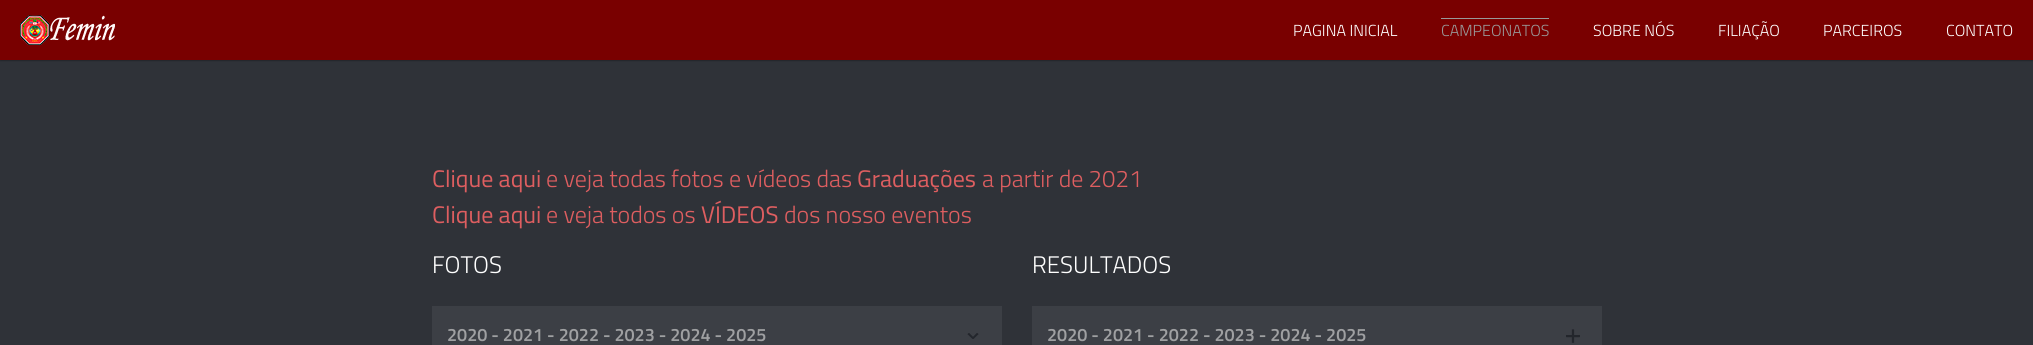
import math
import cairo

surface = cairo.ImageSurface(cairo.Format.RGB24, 2033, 345)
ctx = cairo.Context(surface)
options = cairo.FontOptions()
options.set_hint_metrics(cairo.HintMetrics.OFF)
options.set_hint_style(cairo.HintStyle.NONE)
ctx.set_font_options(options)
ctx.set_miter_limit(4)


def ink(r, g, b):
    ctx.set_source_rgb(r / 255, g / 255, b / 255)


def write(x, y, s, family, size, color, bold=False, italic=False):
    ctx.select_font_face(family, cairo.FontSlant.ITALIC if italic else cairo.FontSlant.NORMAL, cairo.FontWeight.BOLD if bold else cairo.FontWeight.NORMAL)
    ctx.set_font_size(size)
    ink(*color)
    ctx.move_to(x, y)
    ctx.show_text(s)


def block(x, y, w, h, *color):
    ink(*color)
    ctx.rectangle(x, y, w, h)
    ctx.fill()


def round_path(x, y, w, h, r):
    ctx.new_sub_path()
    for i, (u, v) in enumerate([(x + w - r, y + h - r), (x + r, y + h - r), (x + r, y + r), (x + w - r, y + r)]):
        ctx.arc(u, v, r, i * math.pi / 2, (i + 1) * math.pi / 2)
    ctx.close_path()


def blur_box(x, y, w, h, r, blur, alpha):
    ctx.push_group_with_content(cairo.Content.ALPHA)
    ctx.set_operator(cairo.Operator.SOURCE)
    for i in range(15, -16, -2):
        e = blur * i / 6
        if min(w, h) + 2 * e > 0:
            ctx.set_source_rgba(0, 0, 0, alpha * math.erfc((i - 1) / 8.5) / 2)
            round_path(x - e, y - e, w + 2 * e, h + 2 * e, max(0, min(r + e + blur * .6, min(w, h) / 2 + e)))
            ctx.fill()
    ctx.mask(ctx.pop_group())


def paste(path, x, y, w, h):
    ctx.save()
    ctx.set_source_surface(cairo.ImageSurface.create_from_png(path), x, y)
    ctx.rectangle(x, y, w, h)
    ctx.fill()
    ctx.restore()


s1 = dict(family="Titillium Web Light", size=16, color=(255, 255, 255))
s2 = dict(family="Titillium Web Light", size=16, color=(153, 153, 153))
s3 = dict(family="Titillium Web", size=24, color=(222, 94, 96))
s4 = dict(family="Titillium Web Light", size=24, color=(222, 94, 96))
s5 = dict(family="Titillium Web Light", size=24, color=(255, 255, 255))
s6 = dict(family="Titillium Web SemiBold", size=18, color=(159, 160, 162))

ink(47, 50, 56)
ctx.paint()
ink(0, 0, 0)
blur_box(0, 1, 2033, 60, 0, 0.5, 0.25)
block(0, 0, 2033, 60, 121, 0, 0)
paste("pic1.png", 20, 15, 95, 30)
write(1293, 36, "PAGINA INICIAL", **s1)
write(1441, 36, "CAMPEONATOS", **s2)
block(1441, 18, 108, 1, 153, 153, 153)
write(1593, 36, "SOBRE NÓS", **s1)
write(1718, 36, "FILIAÇÃO", **s1)
write(1823, 36, "PARCEIROS", **s1)
write(1946, 36, "CONTATO", **s1)
write(432, 187, "Clique aqui", **s3)
write(546, 187, "e veja todas fotos e vídeos das", **s4)
write(857, 187, "Graduações", **s3)
write(982, 187, "a partir de 2021", **s4)
write(432, 223, "Clique aqui", **s3)
write(546, 223, "e veja todos os", **s4)
write(701, 223, "VÍDEOS", **s3)
write(784, 223, "dos nosso eventos", **s4)
write(432, 273, "FOTOS", **s5)
block(432, 306, 570, 39, 60, 63, 69)
write(447, 341, "2020 - 2021 - 2022 - 2023 - 2024 - 2025", **s6)
paste("pic2.png", 967, 333, 12, 6)
write(1032, 273, "RESULTADOS", **s5)
block(1032, 306, 570, 39, 60, 63, 69)
write(1047, 341, "2020 - 2021 - 2022 - 2023 - 2024 - 2025", **s6)
paste("pic3.png", 1566, 329, 14, 14)
block(1566, 335, 14, 2, 35, 38, 44)
surface.write_to_png("screenshot.png")
